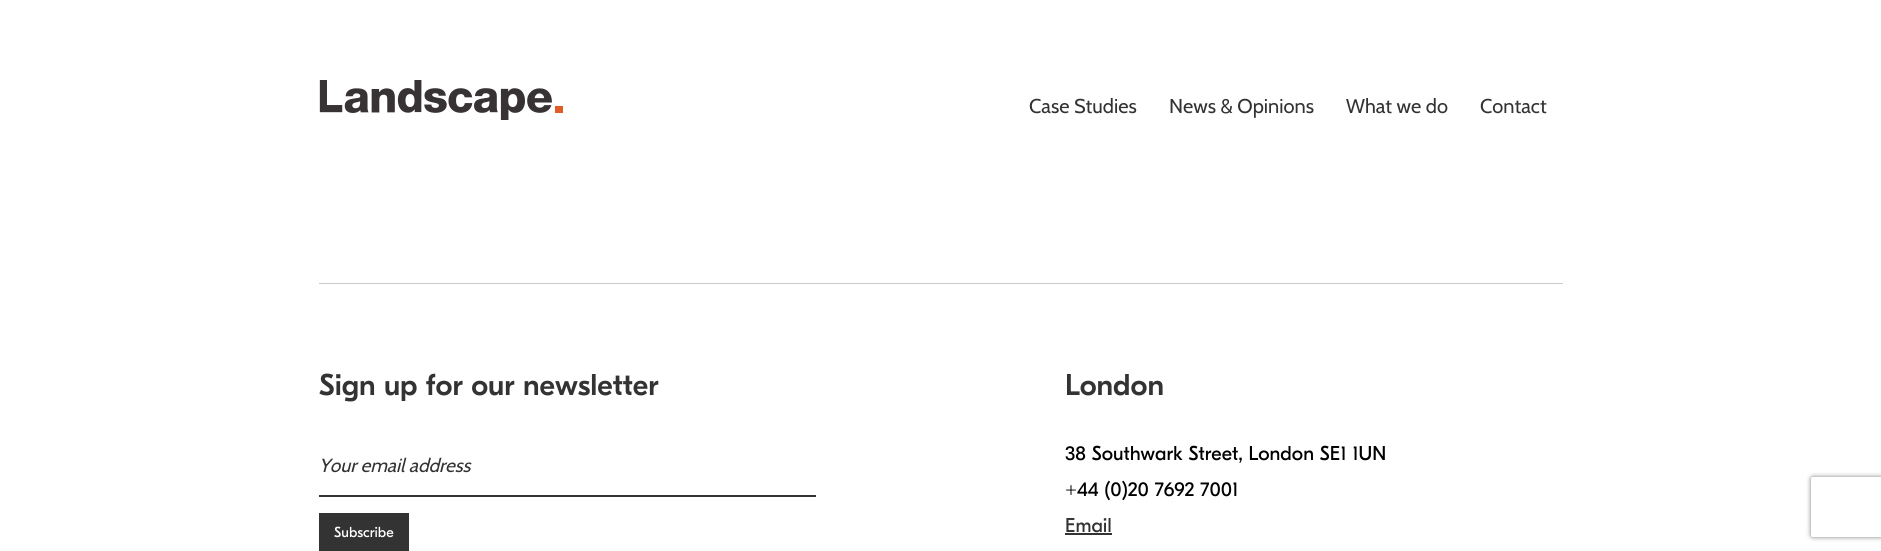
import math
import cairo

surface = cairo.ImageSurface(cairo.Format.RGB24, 1881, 551)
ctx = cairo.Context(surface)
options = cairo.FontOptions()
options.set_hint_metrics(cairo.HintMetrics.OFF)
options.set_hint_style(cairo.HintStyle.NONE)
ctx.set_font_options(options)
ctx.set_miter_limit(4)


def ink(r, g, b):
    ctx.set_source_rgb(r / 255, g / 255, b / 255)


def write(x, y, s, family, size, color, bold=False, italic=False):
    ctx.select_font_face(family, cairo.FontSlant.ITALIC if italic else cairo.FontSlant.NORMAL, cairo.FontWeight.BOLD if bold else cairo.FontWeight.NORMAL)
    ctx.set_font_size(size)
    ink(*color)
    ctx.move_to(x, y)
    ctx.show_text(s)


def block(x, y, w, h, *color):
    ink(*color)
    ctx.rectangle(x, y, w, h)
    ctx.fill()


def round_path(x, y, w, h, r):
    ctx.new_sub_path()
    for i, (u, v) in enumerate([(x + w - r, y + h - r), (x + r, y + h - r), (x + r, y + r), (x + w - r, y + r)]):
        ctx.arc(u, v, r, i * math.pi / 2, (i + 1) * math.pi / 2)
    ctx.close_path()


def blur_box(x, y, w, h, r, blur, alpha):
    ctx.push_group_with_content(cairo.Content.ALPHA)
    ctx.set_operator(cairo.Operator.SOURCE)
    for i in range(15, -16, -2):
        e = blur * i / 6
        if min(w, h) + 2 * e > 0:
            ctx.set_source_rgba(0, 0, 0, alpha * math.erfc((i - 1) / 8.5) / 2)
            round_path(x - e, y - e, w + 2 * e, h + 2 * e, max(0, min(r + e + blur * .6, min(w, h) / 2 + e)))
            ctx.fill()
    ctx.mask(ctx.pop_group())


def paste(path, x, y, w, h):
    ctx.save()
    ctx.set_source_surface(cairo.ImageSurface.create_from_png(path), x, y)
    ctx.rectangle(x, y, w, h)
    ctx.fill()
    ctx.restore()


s1 = dict(family="Cabin", size=20, color=(51, 51, 51))
s2 = dict(family="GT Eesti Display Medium", size=30, color=(51, 51, 51))
s3 = dict(family="Cabin", size=19, color=(51, 51, 51), italic=True)
s4 = dict(family="GT Eesti Display", size=14.5, color=(254, 254, 254))
s5 = dict(family="GT Eesti Display", size=20, color=(0, 0, 0))
s6 = dict(family="GT Eesti Display", size=20, color=(51, 51, 51))

ink(255, 255, 255)
ctx.paint()
paste("pic1.png", 319, 80, 244, 40)
write(1029, 113, "Case Studies", **s1)
write(1169, 113, "News & Opinions", **s1)
write(1346, 113, "What we do", **s1)
write(1480, 113, "Contact", **s1)
block(319, 283, 1244, 1, 202, 202, 202)
write(319, 395, "Sign up for our newsletter", **s2)
block(319, 495, 497, 2, 51, 51, 51)
write(319, 472, "Your email address", **s3)
block(319, 513, 90, 38, 51, 51, 51)
write(334, 537, "Subscribe", **s4)
write(1065, 395, "London", **s2)
write(1065, 460, "38 Southwark Street, London SE1 1UN", **s5)
write(1065, 496, "+44 (0)20 7692 7001", **s5)
write(1065, 532, "Email", **s6)
block(1065, 533, 47, 2, 51, 51, 51)
ctx.save()
ctx.set_fill_rule(cairo.FillRule.EVEN_ODD)
ctx.new_path()
ctx.move_to(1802, 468)
ctx.line_to(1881, 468)
ctx.line_to(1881, 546)
ctx.line_to(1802, 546)
ctx.close_path()
ctx.move_to(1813, 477)
ctx.line_to(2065, 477)
ctx.curve_to(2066, 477, 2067, 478, 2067, 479)
ctx.line_to(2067, 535)
ctx.curve_to(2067, 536, 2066, 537, 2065, 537)
ctx.line_to(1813, 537)
ctx.curve_to(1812, 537, 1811, 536, 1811, 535)
ctx.line_to(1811, 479)
ctx.curve_to(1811, 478, 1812, 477, 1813, 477)
ctx.close_path()
ctx.clip()
ink(128, 128, 128)
blur_box(1811, 477, 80, 60, 2, 2.5, 1)
ctx.restore()
surface.write_to_png("screenshot.png")
